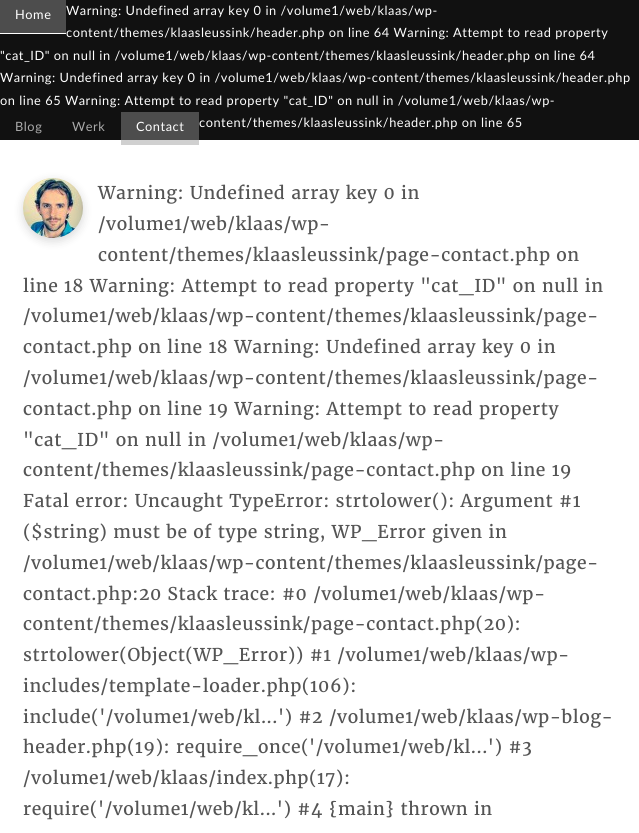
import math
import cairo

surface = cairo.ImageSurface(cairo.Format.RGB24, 639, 833)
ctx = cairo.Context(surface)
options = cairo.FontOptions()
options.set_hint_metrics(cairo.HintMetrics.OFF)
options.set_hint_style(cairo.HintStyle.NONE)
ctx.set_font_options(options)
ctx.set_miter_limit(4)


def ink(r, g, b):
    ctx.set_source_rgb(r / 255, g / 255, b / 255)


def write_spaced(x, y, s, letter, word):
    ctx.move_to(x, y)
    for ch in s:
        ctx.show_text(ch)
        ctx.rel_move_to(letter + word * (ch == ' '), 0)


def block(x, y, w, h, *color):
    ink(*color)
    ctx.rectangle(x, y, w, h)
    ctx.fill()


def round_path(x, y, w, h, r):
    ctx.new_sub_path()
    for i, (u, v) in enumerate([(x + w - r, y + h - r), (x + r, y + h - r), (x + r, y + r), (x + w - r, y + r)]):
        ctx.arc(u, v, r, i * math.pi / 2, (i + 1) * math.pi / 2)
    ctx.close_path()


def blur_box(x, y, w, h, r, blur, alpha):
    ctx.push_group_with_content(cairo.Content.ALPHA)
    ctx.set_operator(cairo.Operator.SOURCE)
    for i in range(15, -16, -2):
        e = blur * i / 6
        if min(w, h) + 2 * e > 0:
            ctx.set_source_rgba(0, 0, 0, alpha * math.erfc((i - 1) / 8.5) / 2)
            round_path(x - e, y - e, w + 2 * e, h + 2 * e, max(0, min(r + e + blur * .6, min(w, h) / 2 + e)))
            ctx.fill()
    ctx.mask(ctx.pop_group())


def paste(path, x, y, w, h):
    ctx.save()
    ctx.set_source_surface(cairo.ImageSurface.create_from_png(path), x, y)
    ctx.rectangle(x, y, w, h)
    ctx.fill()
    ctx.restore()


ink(255, 255, 255)
ctx.paint()
block(0, 0, 639, 140, 17, 17, 17)
block(0, 0, 66, 33, 77, 77, 77)
block(0, 33, 66, 1, 255, 255, 255)
ctx.select_font_face("Lato")
ctx.set_font_size(12.8)
write_spaced(15, 19, "Home", 0.53, 0)
write_spaced(66, 15, "Warning: Undefined array key 0 in /volume1/web/klaas/wp-", 0.53, 0)
write_spaced(66, 37, "content/themes/klaasleussink/header.php on line 64 Warning: Attempt to read property", 0.53, 0)
write_spaced(0, 60, "\"cat_ID\" on null in /volume1/web/klaas/wp-content/themes/klaasleussink/header.php on line 64", 0.53, 0)
write_spaced(0, 82, "Warning: Undefined array key 0 in /volume1/web/klaas/wp-content/themes/klaasleussink/header.php", 0.53, 0)
write_spaced(0, 105, "on line 65 Warning: Attempt to read property \"cat_ID\" on null in /volume1/web/klaas/wp-", 0.53, 0)
ink(170, 170, 170)
write_spaced(15, 131, "Blog", 0.53, 0)
write_spaced(72, 131, "Werk", 0.53, 0)
ctx.set_source_rgba(0.592, 0.592, 0.592, 0.45)
ctx.rectangle(121, 112, 78, 33)
ctx.fill()
ink(255, 255, 255)
write_spaced(136, 131, "Contact", 0.53, 0)
write_spaced(199, 127, "content/themes/klaasleussink/header.php on line 65", 0.53, 0)
ink(0, 0, 0)
blur_box(23, 181, 60, 60, 30, 5, 0.15)
paste("pic1.png", 23, 178, 60, 60)
ctx.select_font_face("Merriweather")
ctx.set_font_size(17.6)
ink(85, 85, 85)
write_spaced(98, 199, "Warning: Undefined array key 0 in", 0.53, 0)
write_spaced(98, 230, "/volume1/web/klaas/wp-", 0.53, 0)
write_spaced(98, 261, "content/themes/klaasleussink/page-contact.php on", 0.53, 0)
write_spaced(23, 292, "line 18 Warning: Attempt to read property \"cat_ID\" on null in", 0.53, 0)
write_spaced(23, 322, "/volume1/web/klaas/wp-content/themes/klaasleussink/page-", 0.53, 0)
write_spaced(23, 353, "contact.php on line 18 Warning: Undefined array key 0 in", 0.53, 0)
write_spaced(23, 384, "/volume1/web/klaas/wp-content/themes/klaasleussink/page-", 0.53, 0)
write_spaced(23, 415, "contact.php on line 19 Warning: Attempt to read property", 0.53, 0)
write_spaced(23, 446, "\"cat_ID\" on null in /volume1/web/klaas/wp-", 0.53, 0)
write_spaced(23, 476, "content/themes/klaasleussink/page-contact.php on line 19", 0.53, 0)
write_spaced(23, 507, "Fatal error: Uncaught TypeError: strtolower(): Argument #1", 0.53, 0)
write_spaced(23, 538, "($string) must be of type string, WP_Error given in", 0.53, 0)
write_spaced(23, 569, "/volume1/web/klaas/wp-content/themes/klaasleussink/page-", 0.53, 0)
write_spaced(23, 600, "contact.php:20 Stack trace: #0 /volume1/web/klaas/wp-", 0.53, 0)
write_spaced(23, 630, "content/themes/klaasleussink/page-contact.php(20):", 0.53, 0)
write_spaced(23, 661, "strtolower(Object(WP_Error)) #1 /volume1/web/klaas/wp-", 0.53, 0)
write_spaced(23, 692, "includes/template-loader.php(106):", 0.53, 0)
write_spaced(23, 723, "include('/volume1/web/kl...') #2 /volume1/web/klaas/wp-blog-", 0.53, 0)
write_spaced(23, 753, "header.php(19): require_once('/volume1/web/kl...') #3", 0.53, 0)
write_spaced(23, 784, "/volume1/web/klaas/index.php(17):", 0.53, 0)
write_spaced(23, 815, "require('/volume1/web/kl...') #4 {main} thrown in", 0.53, 0)
surface.write_to_png("screenshot.png")
